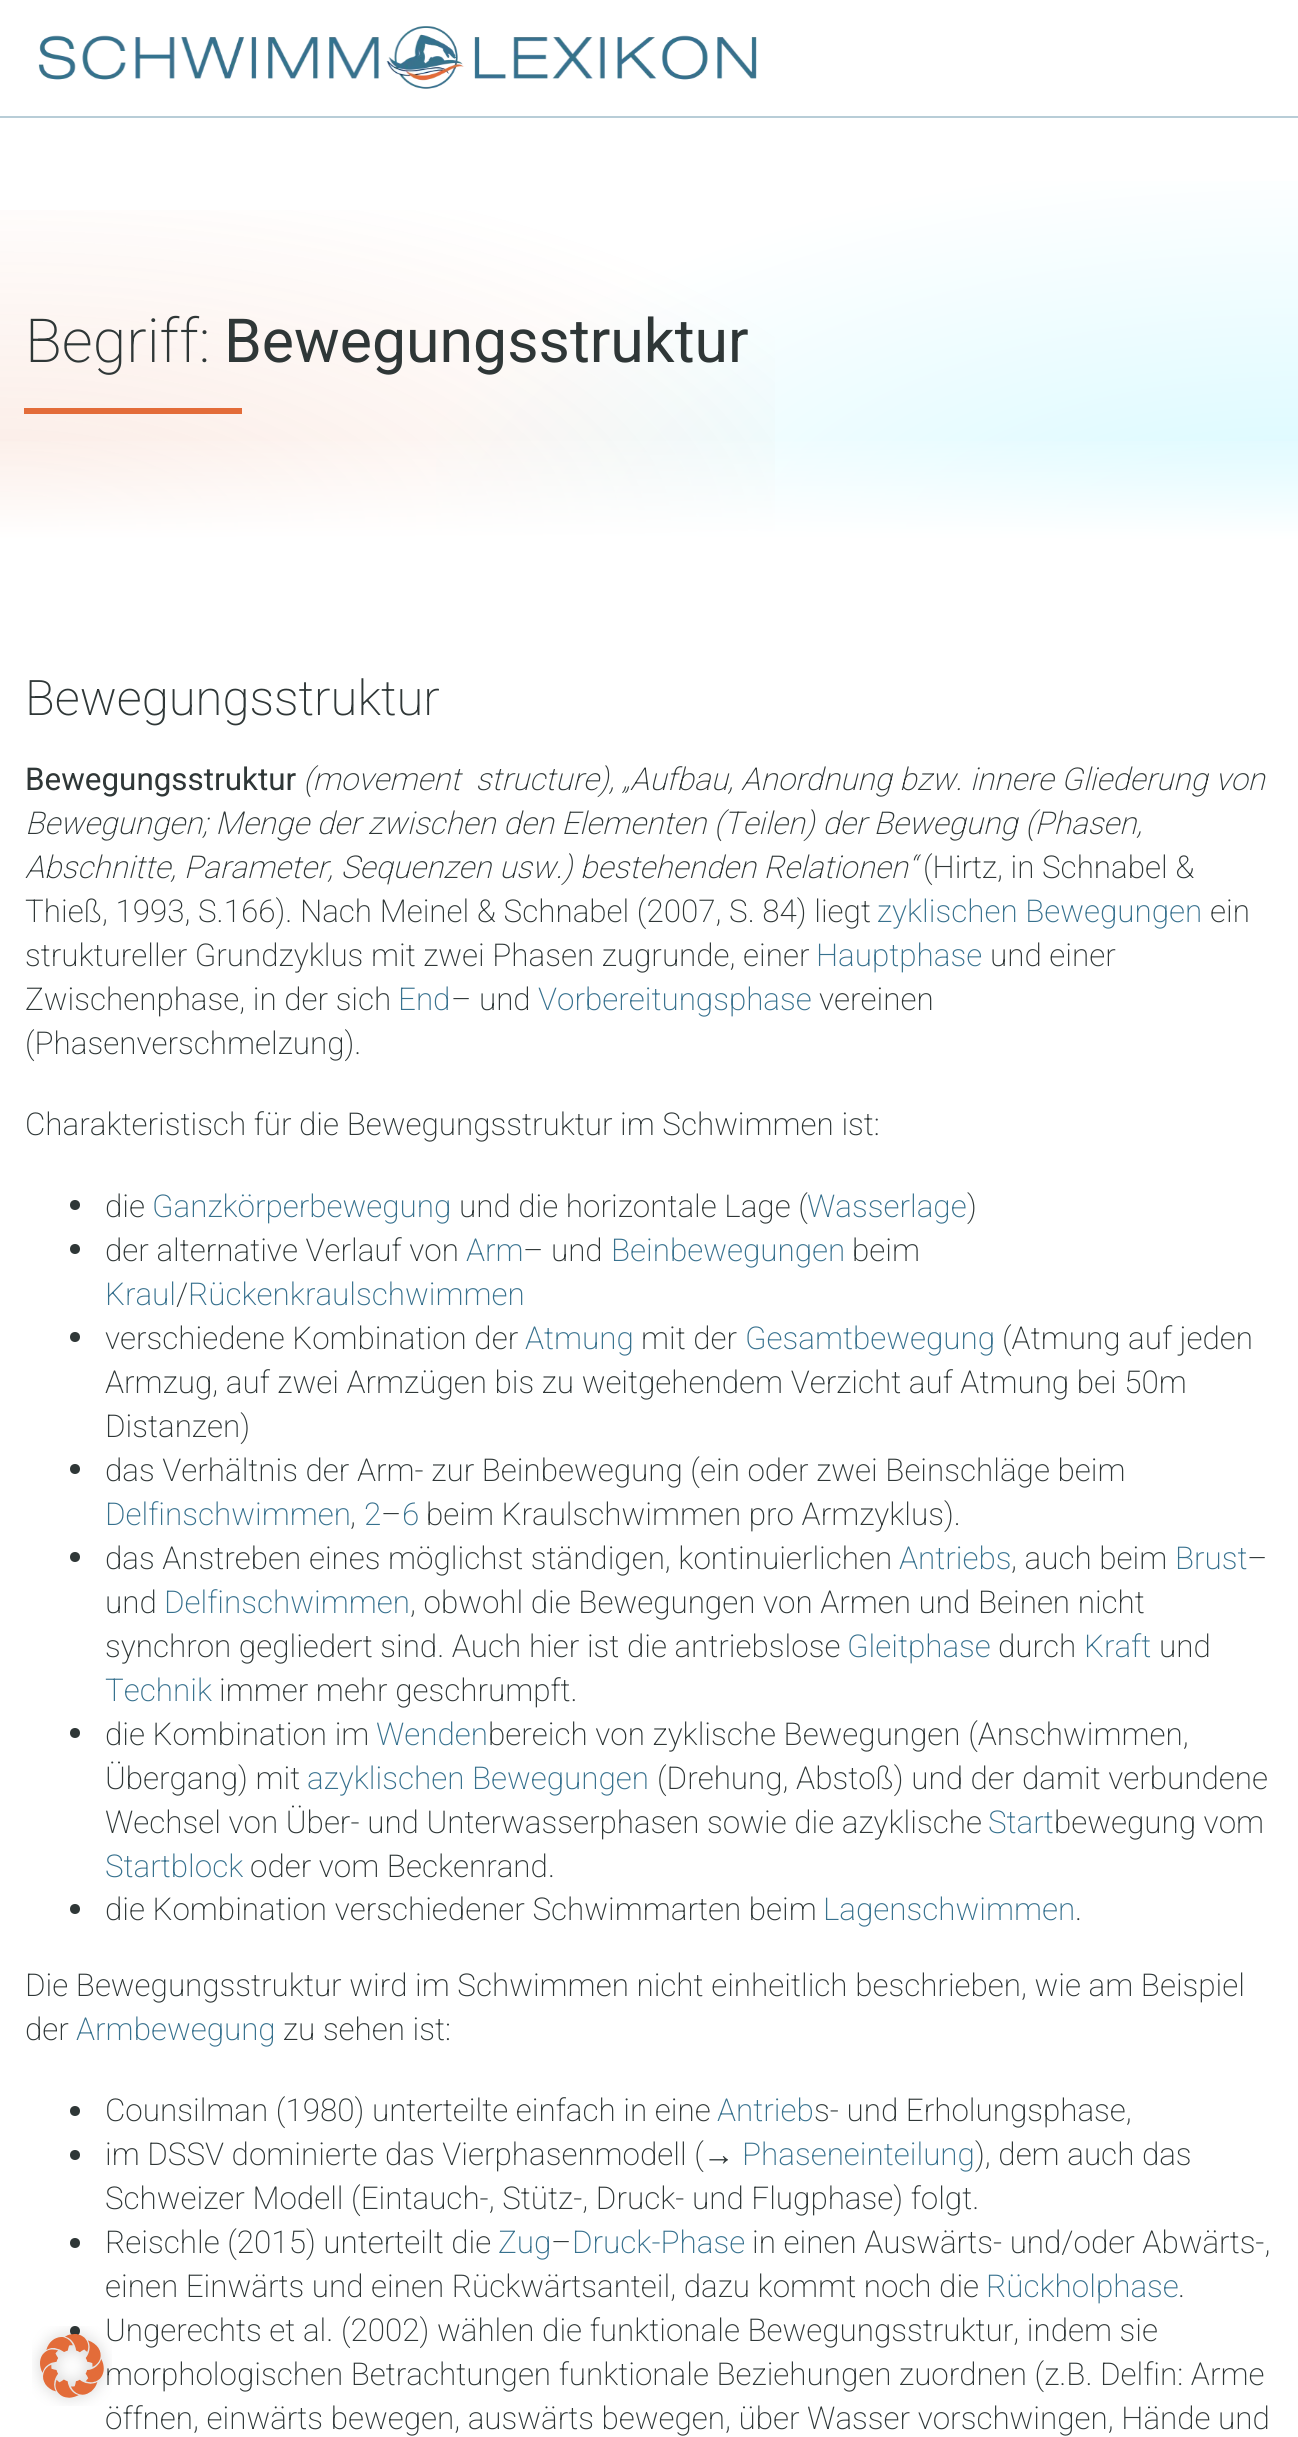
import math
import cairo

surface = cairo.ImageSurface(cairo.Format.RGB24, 1298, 2437)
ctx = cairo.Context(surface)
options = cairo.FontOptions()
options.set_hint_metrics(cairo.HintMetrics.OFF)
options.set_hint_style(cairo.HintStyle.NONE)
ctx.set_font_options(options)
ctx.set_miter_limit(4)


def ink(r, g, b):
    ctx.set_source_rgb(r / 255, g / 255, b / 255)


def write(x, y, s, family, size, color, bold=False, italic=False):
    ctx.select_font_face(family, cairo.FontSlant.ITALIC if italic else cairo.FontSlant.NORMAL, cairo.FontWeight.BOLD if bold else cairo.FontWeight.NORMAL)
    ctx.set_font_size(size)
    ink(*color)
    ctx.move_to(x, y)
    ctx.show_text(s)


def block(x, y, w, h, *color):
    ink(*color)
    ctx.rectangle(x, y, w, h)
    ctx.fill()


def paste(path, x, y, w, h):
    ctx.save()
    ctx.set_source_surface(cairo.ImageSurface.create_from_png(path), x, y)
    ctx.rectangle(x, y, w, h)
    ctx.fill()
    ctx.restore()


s1 = dict(family="Roboto ExtraLight", size=60.75, color=(47, 55, 55))
s2 = dict(family="Roboto", size=60.75, color=(47, 55, 55))
s3 = dict(family="Roboto ExtraLight", size=49, color=(47, 55, 55))
s4 = dict(family="Roboto", size=31.4, color=(47, 55, 55))
s5 = dict(family="Roboto ExtraLight", size=31.4, color=(47, 55, 55), italic=True)
s6 = dict(family="Roboto ExtraLight", size=31.4, color=(47, 55, 55))
s7 = dict(family="Roboto ExtraLight", size=31.4, color=(55, 113, 142))
s8 = dict(family="Liberation Serif", size=31.4, color=(47, 55, 55))

ink(255, 255, 255)
ctx.paint()
block(0, 116, 1298, 2, 184, 205, 215)
paste("pic1.png", 38, 26, 719, 63)
gradient = cairo.RadialGradient(0, 0, 0, 0, 0, 1)
gradient.set_matrix(cairo.Matrix(1 / 1836, 0, 0, 1 / 764, -1 * 1298 / 1836, -1 * 540 / 764))
gradient.add_color_stop_rgba(0, 0.835, 0.976, 1, 1)
gradient.add_color_stop_rgba(0.5, 1, 1, 1, 1)
ctx.set_source(gradient)
ctx.rectangle(436, 181, 862, 358)
ctx.fill()
gradient = cairo.RadialGradient(0, 0, 0, 0, 0, 1)
gradient.set_matrix(cairo.Matrix(1 / 1836, 0, 0, 1 / 741, -1 * 0 / 1836, -1 * 524 / 741))
gradient.add_color_stop_rgba(0, 0.882, 0.416, 0.216, 0.14)
gradient.add_color_stop_rgba(0.5, 0.882, 0.416, 0.216, 0)
ctx.set_source(gradient)
ctx.rectangle(0, 210, 775, 329)
ctx.fill()
write(25, 362, "Begriff:", **s1)
write(224, 362, "Bewegungsstruktur", **s2)
block(24, 408, 218, 6, 227, 108, 57)
gradient = cairo.LinearGradient(649, 0, 649, 540)
gradient.add_color_stop_rgba(0.8, 1, 1, 1, 0)
gradient.add_color_stop_rgba(1, 1, 1, 1, 1)
ctx.set_source(gradient)
ctx.rectangle(0, 441, 1298, 98)
ctx.fill()
write(25, 715, "Bewegungsstruktur", **s3)
write(25, 790, "Bewegungsstruktur", **s4)
write(303, 790, "(movement  structure), „Aufbau, Anordnung bzw. innere Gliederung von", **s5)
write(25, 834, "Bewegungen; Menge der zwischen den Elementen (Teilen) der Bewegung (Phasen,", **s5)
write(25, 878, "Abschnitte, Parameter, Sequenzen usw.) bestehenden Relationen“", **s5)
write(923, 878, "(Hirtz, in Schnabel &", **s6)
write(25, 922, "Thieß, 1993, S.166). Nach Meinel & Schnabel (2007, S. 84) liegt", **s6)
write(877, 922, "zyklischen Bewegungen", **s7)
write(1210, 922, "ein", **s6)
write(25, 966, "struktureller Grundzyklus mit zwei Phasen zugrunde, einer", **s6)
write(816, 966, "Hauptphase", **s7)
write(990, 966, "und einer", **s6)
write(25, 1010, "Zwischenphase, in der sich", **s6)
write(398, 1010, "End", **s7)
write(451, 1010, "– und", **s6)
write(538, 1010, "Vorbereitungsphase", **s7)
write(819, 1010, "vereinen", **s6)
write(25, 1054, "(Phasenverschmelzung).", **s6)
write(25, 1135, "Charakteristisch für die Bewegungsstruktur im Schwimmen ist:", **s6)
ctx.new_path()
ctx.arc(75, 1205, 5, 0, 2 * math.pi)
ctx.fill()
write(105, 1217, "die", **s6)
write(152, 1217, "Ganzkörperbewegung", **s7)
write(459, 1217, "und die horizontale Lage (", **s6)
write(807, 1217, "Wasserlage", **s7)
write(967, 1217, ")", **s6)
ctx.new_path()
ctx.arc(75, 1249, 5, 0, 2 * math.pi)
ctx.fill()
write(105, 1261, "der alternative Verlauf von", **s6)
write(466, 1261, "Arm", **s7)
write(523, 1261, "– und", **s6)
write(611, 1261, "Beinbewegungen", **s7)
write(852, 1261, "beim", **s6)
write(105, 1305, "Kraul", **s7)
write(176, 1305, "/", **s6)
write(188, 1305, "Rückenkraulschwimmen", **s7)
ink(47, 55, 55)
ctx.new_path()
ctx.arc(75, 1337, 5, 0, 2 * math.pi)
ctx.fill()
write(105, 1349, "verschiedene Kombination der", **s6)
write(525, 1349, "Atmung", **s7)
write(641, 1349, "mit der", **s6)
write(745, 1349, "Gesamtbewegung", **s7)
write(1002, 1349, "(Atmung auf jeden", **s6)
write(105, 1393, "Armzug, auf zwei Armzügen bis zu weitgehendem Verzicht auf Atmung bei 50m", **s6)
write(105, 1437, "Distanzen)", **s6)
ctx.new_path()
ctx.arc(75, 1469, 5, 0, 2 * math.pi)
ctx.fill()
write(105, 1481, "das Verhältnis der Arm- zur Beinbewegung (ein oder zwei Beinschläge beim", **s6)
write(105, 1525, "Delfinschwimmen", **s7)
write(364, 1525, "2", **s7)
write(381, 1525, "–", **s6)
write(402, 1525, "6", **s7)
write(426, 1525, "beim Kraulschwimmen pro Armzyklus).", **s6)
write(350, 1525, ",", **s6)
ctx.new_path()
ctx.arc(75, 1557, 5, 0, 2 * math.pi)
ctx.fill()
write(105, 1569, "das Anstreben eines möglichst ständigen, kontinuierlichen", **s6)
write(899, 1569, "Antriebs", **s7)
write(1011, 1569, ", auch beim", **s6)
write(1175, 1569, "Brust", **s7)
write(1247, 1569, "–", **s6)
write(105, 1613, "und", **s6)
write(164, 1613, "Delfinschwimmen", **s7)
write(410, 1613, ", obwohl die Bewegungen von Armen und Beinen nicht", **s6)
write(105, 1657, "synchron gegliedert sind. Auch hier ist die antriebslose", **s6)
write(847, 1657, "Gleitphase", **s7)
write(998, 1657, "durch", **s6)
write(1084, 1657, "Kraft", **s7)
write(1159, 1657, "und", **s6)
write(105, 1701, "Technik", **s7)
write(219, 1701, "immer mehr geschrumpft.", **s6)
ctx.new_path()
ctx.arc(75, 1733, 5, 0, 2 * math.pi)
ctx.fill()
write(105, 1745, "die Kombination im", **s6)
write(376, 1745, "Wenden", **s7)
write(488, 1745, "bereich von zyklische Bewegungen (Anschwimmen,", **s6)
write(105, 1789, "Übergang) mit", **s6)
write(307, 1789, "azyklischen Bewegungen", **s7)
write(657, 1789, "(Drehung, Abstoß) und der damit verbundene", **s6)
write(105, 1833, "Wechsel von Über- und Unterwasserphasen sowie die azyklische", **s6)
write(988, 1833, "Start", **s7)
write(1054, 1833, "bewegung vom", **s6)
write(105, 1877, "Startblock", **s7)
write(250, 1877, "oder vom Beckenrand.", **s6)
ctx.new_path()
ctx.arc(75, 1909, 5, 0, 2 * math.pi)
ctx.fill()
write(105, 1920, "die Kombination verschiedener Schwimmarten beim", **s6)
write(823, 1920, "Lagenschwimmen", **s7)
write(1075, 1920, ".", **s6)
write(25, 1996, "Die Bewegungsstruktur wird im Schwimmen nicht einheitlich beschrieben, wie am Beispiel", **s6)
write(25, 2040, "der", **s6)
write(76, 2040, "Armbewegung", **s7)
write(283, 2040, "zu sehen ist:", **s6)
ctx.new_path()
ctx.arc(75, 2111, 5, 0, 2 * math.pi)
ctx.fill()
write(105, 2121, "Counsilman (1980) unterteilte einfach in eine", **s6)
write(717, 2121, "Antrieb", **s7)
write(814, 2121, "s- und Erholungsphase,", **s6)
ctx.new_path()
ctx.arc(75, 2155, 5, 0, 2 * math.pi)
ctx.fill()
write(105, 2165, "im DSSV dominierte das Vierphasenmodell (", **s6)
write(703, 2165, "→", **s8)
write(742, 2165, "Phaseneinteilung", **s7)
write(975, 2165, "), dem auch das", **s6)
write(105, 2209, "Schweizer Modell (Eintauch-, Stütz-, Druck- und Flugphase) folgt.", **s6)
ctx.new_path()
ctx.arc(75, 2243, 5, 0, 2 * math.pi)
ctx.fill()
write(105, 2253, "Reischle (2015) unterteilt die", **s6)
write(498, 2253, "Zug", **s7)
write(551, 2253, "–", **s6)
write(572, 2253, "Druck-Phase", **s7)
write(752, 2253, "in einen Auswärts- und/oder Abwärts-,", **s6)
write(105, 2297, "einen Einwärts und einen Rückwärtsanteil, dazu kommt noch die", **s6)
write(986, 2297, "Rückholphase", **s7)
write(1178, 2297, ".", **s6)
ctx.new_path()
ctx.arc(75, 2331, 5, 0, 2 * math.pi)
ctx.fill()
write(105, 2341, "Ungerechts et al. (2002) wählen die funktionale Bewegungsstruktur, indem sie", **s6)
write(105, 2385, "morphologischen Betrachtungen funktionale Beziehungen zuordnen (z.B. Delfin: Arme", **s6)
write(105, 2429, "öffnen, einwärts bewegen, auswärts bewegen, über Wasser vorschwingen, Hände und", **s6)
paste("pic2.png", 32, 2326, 80, 80)
surface.write_to_png("screenshot.png")
